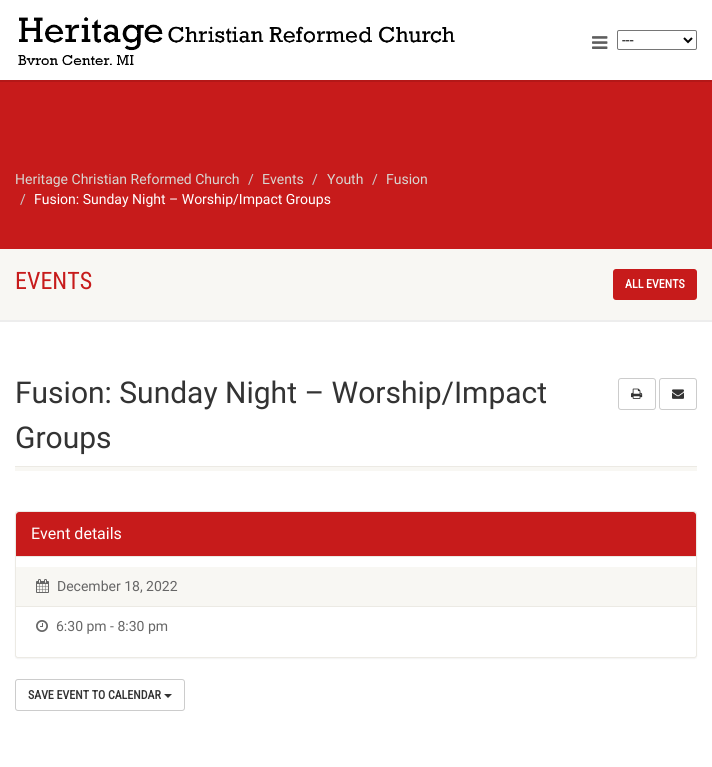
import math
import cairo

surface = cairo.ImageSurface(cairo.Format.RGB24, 712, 767)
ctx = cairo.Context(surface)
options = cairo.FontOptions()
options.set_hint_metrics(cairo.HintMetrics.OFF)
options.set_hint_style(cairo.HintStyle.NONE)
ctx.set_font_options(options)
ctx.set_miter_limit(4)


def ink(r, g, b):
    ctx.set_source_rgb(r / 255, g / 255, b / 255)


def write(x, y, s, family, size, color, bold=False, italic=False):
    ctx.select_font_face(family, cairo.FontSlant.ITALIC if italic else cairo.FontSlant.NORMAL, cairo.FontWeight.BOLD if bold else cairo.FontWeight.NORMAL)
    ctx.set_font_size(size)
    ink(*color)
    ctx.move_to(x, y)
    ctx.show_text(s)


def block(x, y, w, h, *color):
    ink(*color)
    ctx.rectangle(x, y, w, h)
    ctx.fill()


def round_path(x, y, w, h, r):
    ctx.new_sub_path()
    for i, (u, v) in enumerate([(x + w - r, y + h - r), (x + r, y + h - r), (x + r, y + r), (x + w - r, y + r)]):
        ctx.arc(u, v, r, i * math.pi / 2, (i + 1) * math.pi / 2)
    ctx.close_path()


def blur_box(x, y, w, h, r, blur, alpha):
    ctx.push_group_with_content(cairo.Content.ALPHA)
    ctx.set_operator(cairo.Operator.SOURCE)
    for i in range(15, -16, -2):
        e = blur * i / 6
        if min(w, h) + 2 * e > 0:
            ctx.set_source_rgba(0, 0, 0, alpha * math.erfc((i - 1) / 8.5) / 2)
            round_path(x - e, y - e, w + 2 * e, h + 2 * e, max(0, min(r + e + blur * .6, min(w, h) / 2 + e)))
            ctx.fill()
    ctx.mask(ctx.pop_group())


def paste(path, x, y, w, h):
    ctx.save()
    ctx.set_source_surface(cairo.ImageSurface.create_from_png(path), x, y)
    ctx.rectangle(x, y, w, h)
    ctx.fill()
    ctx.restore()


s1 = dict(family="Roboto", size=14, color=(0, 0, 0))
s2 = dict(family="Roboto", size=14, color=(216, 214, 209))
s3 = dict(family="Roboto", size=14, color=(204, 204, 204))
s4 = dict(family="Roboto", size=14, color=(255, 255, 255))
s5 = dict(family="Roboto Condensed", size=24, color=(199, 27, 27))
s6 = dict(family="Roboto Condensed", size=12, color=(255, 255, 255), bold=True)
s7 = dict(family="Roboto", size=30, color=(51, 51, 51))
s8 = dict(family="Roboto", size=16, color=(255, 255, 255))
s9 = dict(family="Roboto", size=14, color=(102, 102, 102))
s10 = dict(family="Roboto Condensed", size=12, color=(51, 51, 51), bold=True)

ink(255, 255, 255)
ctx.paint()
block(0, 80, 712, 2, 179, 24, 24)
paste("pic1.png", 18, 17, 437, 48)
paste("pic2.png", 592, 36, 16, 13)
round_path(617.5, 30.5, 79, 19, 1.5)
ink(118, 118, 118)
ctx.set_line_width(1)
ctx.stroke()
ctx.new_path()
ctx.move_to(684, 38)
ctx.line_to(688, 42)
ctx.line_to(692, 38)
ink(0, 0, 0)
ctx.set_line_width(2)
ctx.stroke()
write(622, 45, "---", **s1)
block(0, 82, 712, 167, 199, 27, 27)
write(15, 184, "Heritage Christian Reformed Church", **s2)
write(248, 184, "/", **s3)
write(262, 184, "Events", **s2)
write(312, 184, "/", **s3)
write(327, 184, "Youth", **s2)
write(372, 184, "/", **s3)
write(386, 184, "Fusion", **s2)
write(20, 204, "/", **s3)
write(34, 204, "Fusion: Sunday Night – Worship/Impact Groups", **s4)
block(0, 320, 712, 2, 237, 237, 237)
block(0, 249, 712, 71, 248, 247, 243)
write(15, 289, "EVENTS", **s5)
round_path(613, 269, 84, 31, 3)
ctx.fill()
write(625, 288, "ALL EVENTS", **s6)
block(15, 466, 682, 1, 236, 234, 228)
write(15, 403, "Fusion: Sunday Night – Worship/Impact", **s7)
write(15, 448, "Groups", **s7)
round_path(618.5, 378.5, 37, 31, 2.5)
ink(204, 204, 204)
ctx.set_line_width(1)
ctx.stroke()
paste("pic3.png", 631, 388, 12, 11)
round_path(659.5, 378.5, 37, 31, 2.5)
ctx.stroke()
paste("pic4.png", 672, 389, 12, 10)
block(15, 467, 682, 4, 248, 247, 243)
ink(0, 0, 0)
blur_box(15, 512, 682, 147, 3, 0.5, 0.05)
ink(255, 255, 255)
round_path(15.5, 511.5, 681, 146, 2.5)
ctx.fill_preserve()
ink(236, 234, 228)
ctx.stroke()
ink(199, 27, 27)
ctx.new_path()
ctx.move_to(19, 512)
ctx.line_to(693, 512)
ctx.curve_to(694.5, 512, 696, 513.5, 696, 515)
ctx.line_to(696, 557)
ctx.line_to(16, 557)
ctx.line_to(16, 515)
ctx.curve_to(16, 513.5, 17.5, 512, 19, 512)
ctx.close_path()
ctx.fill()
block(16, 556, 680, 1, 236, 234, 228)
write(31, 539, "Event details", **s8)
block(16, 567, 680, 39, 248, 247, 243)
block(16, 606, 680, 1, 236, 234, 228)
paste("pic5.png", 36, 579, 13, 14)
write(57, 591, "December 18, 2022", **s9)
paste("pic6.png", 36, 620, 12, 12)
write(56, 631, "6:30 pm - 8:30 pm", **s9)
round_path(15.5, 679.5, 169, 31, 2.5)
ink(204, 204, 204)
ctx.stroke()
write(28, 699, "SAVE EVENT TO CALENDAR", **s10)
ctx.new_path()
ctx.move_to(164, 694)
ctx.line_to(172, 694)
ctx.line_to(168, 698)
ctx.close_path()
ctx.fill()
surface.write_to_png("screenshot.png")
